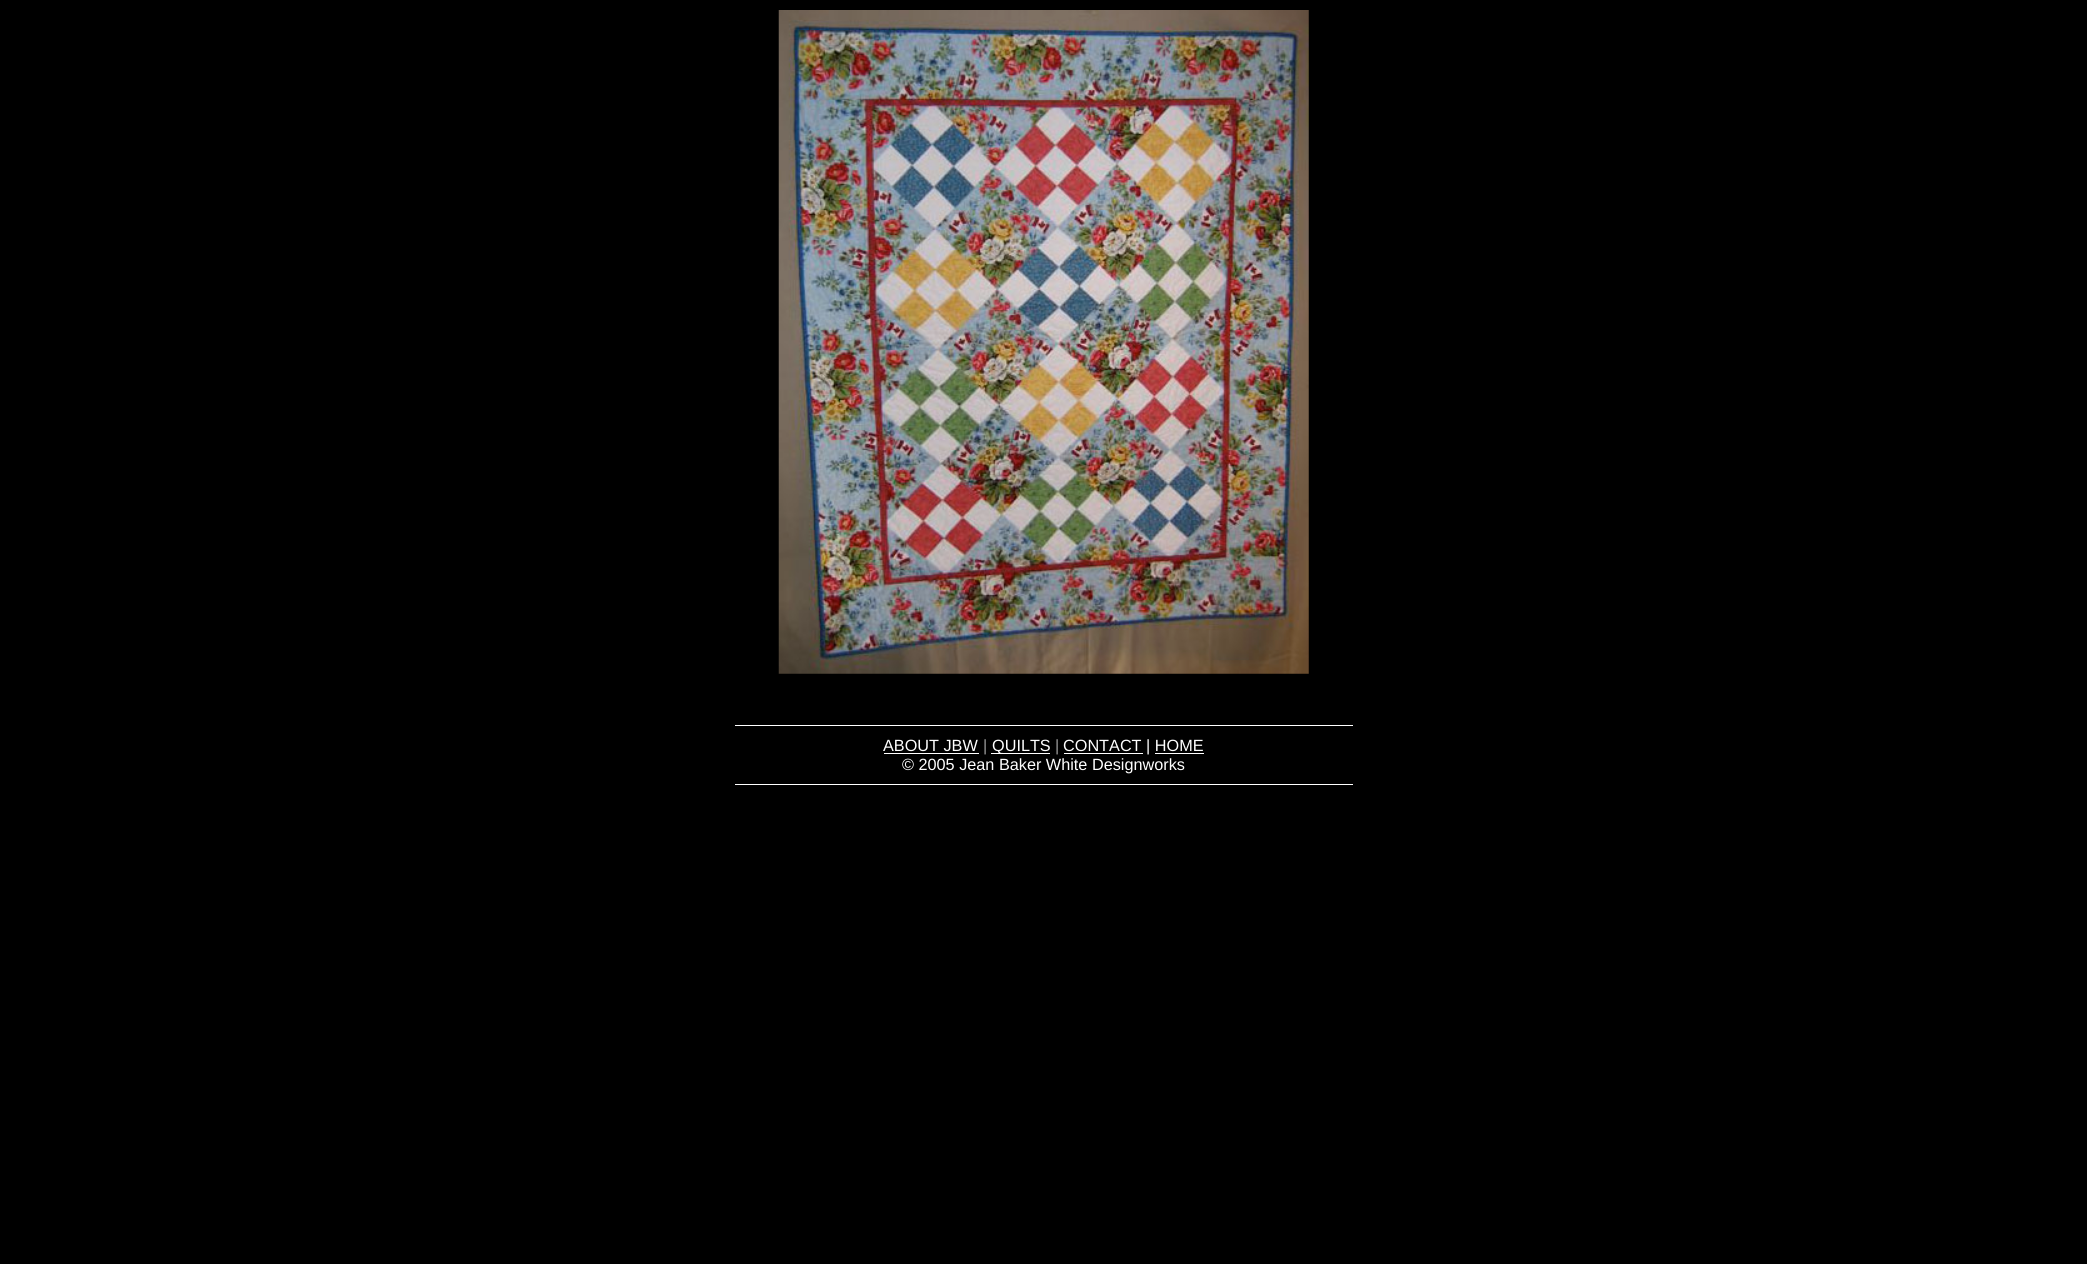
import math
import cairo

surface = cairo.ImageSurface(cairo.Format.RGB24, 2087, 1264)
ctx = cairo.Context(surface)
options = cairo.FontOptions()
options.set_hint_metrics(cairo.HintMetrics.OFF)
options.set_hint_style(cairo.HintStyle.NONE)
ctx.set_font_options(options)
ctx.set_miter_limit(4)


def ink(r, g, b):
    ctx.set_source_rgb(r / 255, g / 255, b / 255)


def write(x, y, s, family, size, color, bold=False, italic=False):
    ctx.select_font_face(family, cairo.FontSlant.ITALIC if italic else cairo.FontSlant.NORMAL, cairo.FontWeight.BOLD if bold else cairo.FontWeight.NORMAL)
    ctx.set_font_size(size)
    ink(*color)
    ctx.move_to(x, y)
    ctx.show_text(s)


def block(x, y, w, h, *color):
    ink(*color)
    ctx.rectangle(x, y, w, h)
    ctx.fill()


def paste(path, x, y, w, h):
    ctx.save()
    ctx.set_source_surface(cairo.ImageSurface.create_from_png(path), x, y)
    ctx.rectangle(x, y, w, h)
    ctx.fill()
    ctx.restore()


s1 = dict(family="Liberation Sans", size=16.25, color=(255, 255, 255))
s2 = dict(family="Liberation Sans", size=16.25, color=(153, 153, 153))

ink(0, 0, 0)
ctx.paint()
paste("pic1.png", 778, 10, 531, 664)
block(735, 725, 618, 1, 255, 255, 255)
write(883, 751, "ABOUT JBW", **s1)
block(884, 753, 95, 1, 255, 255, 255)
write(983, 751, "|", **s2)
block(991, 753, 59, 1, 255, 255, 255)
write(992, 751, "QUILTS", **s1)
write(1055, 751, "|", **s2)
block(1064, 753, 79, 1, 255, 255, 255)
write(1063, 751, "CONTACT | HOME", **s1)
block(1155, 753, 49, 1, 255, 255, 255)
write(902, 770, "© 2005 Jean Baker White Designworks", **s1)
block(735, 784, 618, 1, 255, 255, 255)
surface.write_to_png("screenshot.png")
